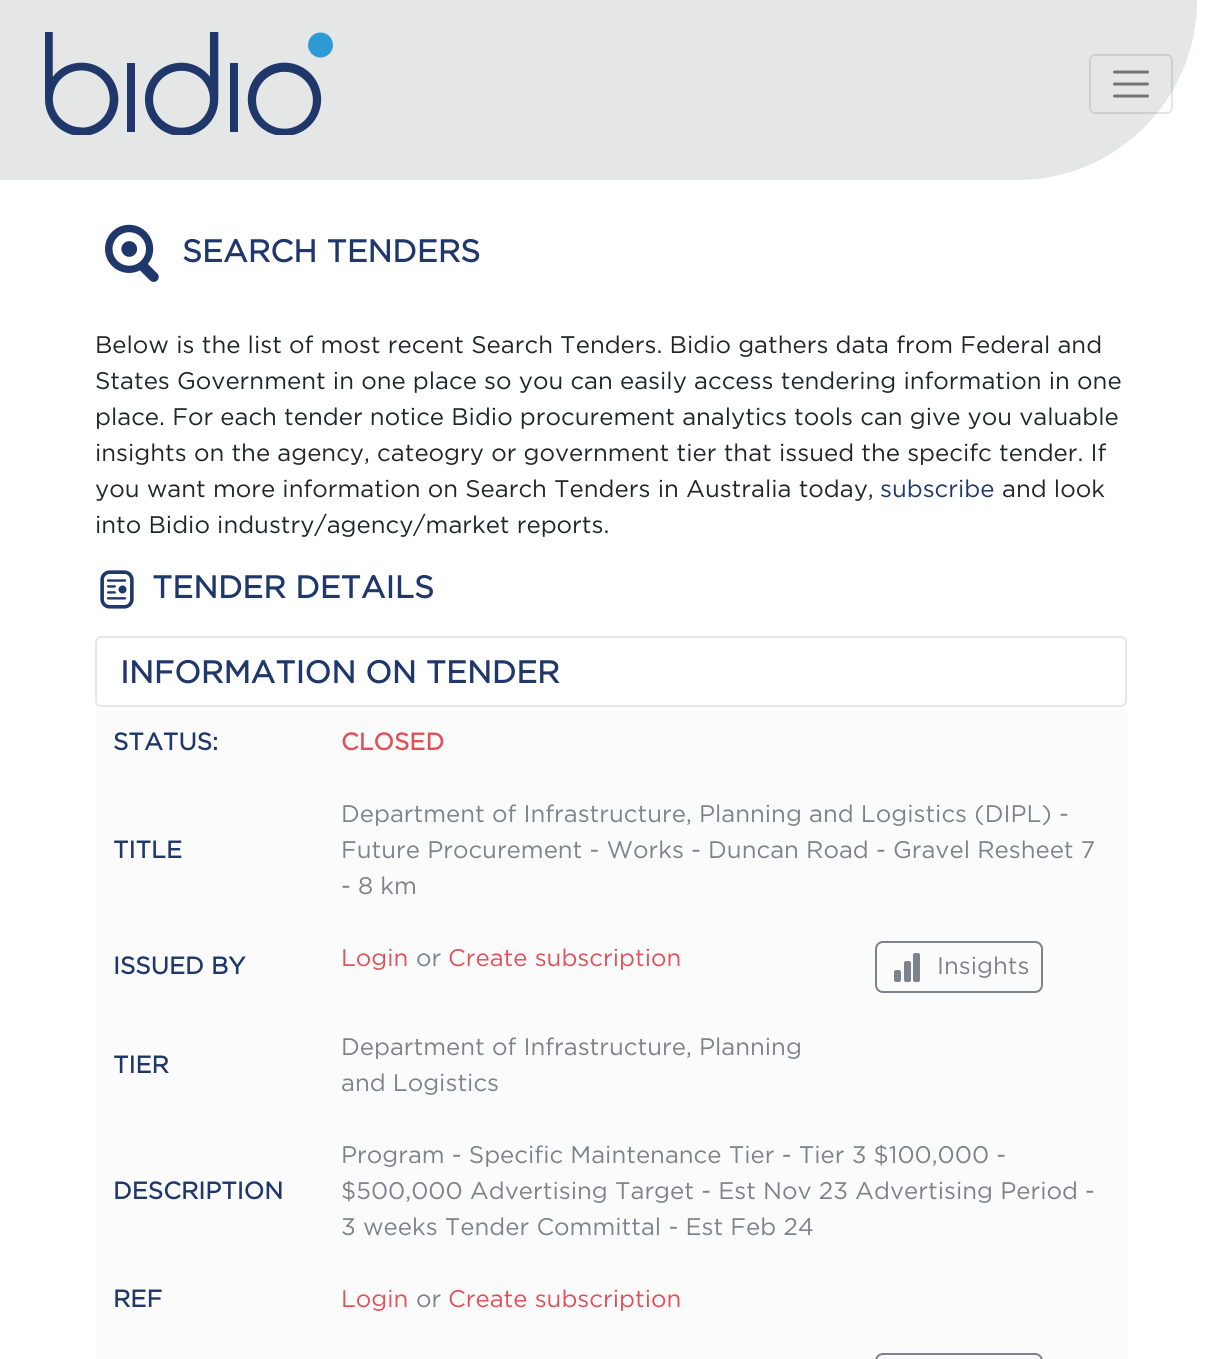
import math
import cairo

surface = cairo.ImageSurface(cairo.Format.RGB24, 1220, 1359)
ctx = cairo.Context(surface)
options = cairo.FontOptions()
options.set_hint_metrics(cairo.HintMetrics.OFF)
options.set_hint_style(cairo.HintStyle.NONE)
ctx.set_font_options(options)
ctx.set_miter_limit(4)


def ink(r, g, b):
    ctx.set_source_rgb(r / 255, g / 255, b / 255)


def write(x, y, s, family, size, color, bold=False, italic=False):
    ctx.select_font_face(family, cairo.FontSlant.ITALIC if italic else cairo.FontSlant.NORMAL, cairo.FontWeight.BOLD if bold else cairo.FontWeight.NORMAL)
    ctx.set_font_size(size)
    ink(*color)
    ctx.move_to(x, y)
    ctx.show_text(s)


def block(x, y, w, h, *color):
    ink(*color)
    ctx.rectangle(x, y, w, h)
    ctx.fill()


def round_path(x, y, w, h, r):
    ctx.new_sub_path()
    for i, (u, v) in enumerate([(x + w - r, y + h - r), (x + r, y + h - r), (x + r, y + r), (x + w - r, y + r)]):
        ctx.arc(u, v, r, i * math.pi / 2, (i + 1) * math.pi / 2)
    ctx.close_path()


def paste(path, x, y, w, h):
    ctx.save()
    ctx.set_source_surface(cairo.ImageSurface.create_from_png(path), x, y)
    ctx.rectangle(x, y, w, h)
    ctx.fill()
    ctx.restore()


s1 = dict(family="Gotham", size=31.25, color=(31, 55, 107), bold=True)
s2 = dict(family="Gotham", size=24, color=(33, 37, 41))
s3 = dict(family="Gotham", size=24, color=(31, 55, 107))
s4 = dict(family="Gotham", size=24, color=(31, 55, 107), bold=True)
s5 = dict(family="Gotham", size=24, color=(225, 80, 89), bold=True)
s6 = dict(family="Gotham", size=24, color=(126, 130, 138))
s7 = dict(family="Gotham", size=24, color=(225, 80, 89))

ink(255, 255, 255)
ctx.paint()
ink(229, 230, 230)
ctx.new_path()
ctx.move_to(0, 0)
ctx.line_to(1197, 0)
ctx.curve_to(1197, 99.5, 1116.5, 180, 1017, 180)
ctx.line_to(0, 180)
ctx.close_path()
ctx.fill()
paste("pic1.png", 45, 32, 288, 103)
round_path(1090, 55, 82, 58, 5)
ctx.set_source_rgba(0, 0, 0, 0.1)
ctx.stroke()
ctx.new_path()
ctx.move_to(1114.5, 72)
ctx.line_to(1147.5, 72)
ctx.move_to(1114.5, 84)
ctx.line_to(1147.5, 84)
ctx.move_to(1114.5, 96)
ctx.line_to(1147.5, 96)
ink(115, 115, 115)
ctx.set_line_width(3)
ctx.set_line_cap(cairo.LineCap.ROUND)
ctx.stroke()
paste("pic2.png", 105, 224, 54, 58)
write(182, 262, "SEARCH TENDERS", **s1)
write(95, 353, "Below is the list of most recent Search Tenders. Bidio gathers data from Federal and", **s2)
write(95, 389, "States Government in one place so you can easily access tendering information in one", **s2)
write(95, 425, "place. For each tender notice Bidio procurement analytics tools can give you valuable", **s2)
write(95, 461, "insights on the agency, cateogry or government tier that issued the specifc tender. If", **s2)
write(95, 497, "you want more information on Search Tenders in Australia today,", **s2)
write(880, 497, "subscribe", **s3)
write(1002, 497, "and look", **s2)
write(95, 533, "into Bidio industry/agency/market reports.", **s2)
paste("pic3.png", 100, 570, 34, 39)
write(152, 598, "TENDER DETAILS", **s1)
round_path(96, 637, 1030, 69, 5)
ink(229, 230, 230)
ctx.set_line_width(2)
ctx.set_line_cap(cairo.LineCap.BUTT)
ctx.stroke()
write(120, 683, "INFORMATION ON TENDER", **s1)
block(95, 707, 1032, 652, 251, 251, 251)
write(113, 750, "STATUS:", **s4)
write(341, 750, "CLOSED", **s5)
write(113, 858, "TITLE", **s4)
write(341, 822, "Department of Infrastructure, Planning and Logistics (DIPL) -", **s6)
write(341, 858, "Future Procurement - Works - Duncan Road - Gravel Resheet 7", **s6)
write(341, 894, "- 8 km", **s6)
write(113, 974, "ISSUED BY", **s4)
write(341, 966, "Login", **s7)
write(416, 966, "or", **s6)
write(448, 966, "Create subscription", **s7)
round_path(876, 942, 166, 50, 7)
ink(126, 130, 138)
ctx.stroke()
round_path(894, 970, 7, 12, 2)
ctx.fill()
round_path(904, 961, 7, 21, 2)
ctx.fill()
round_path(913, 953, 7, 29, 2)
ctx.fill()
write(937, 974, "Insights", **s6)
write(113, 1073, "TIER", **s4)
write(341, 1055, "Department of Infrastructure, Planning", **s6)
write(341, 1091, "and Logistics", **s6)
write(113, 1199, "DESCRIPTION", **s4)
write(341, 1163, "Program - Specific Maintenance Tier - Tier 3 $100,000 -", **s6)
write(341, 1199, "$500,000 Advertising Target - Est Nov 23 Advertising Period -", **s6)
write(341, 1235, "3 weeks Tender Committal - Est Feb 24", **s6)
write(113, 1307, "REF", **s4)
write(341, 1307, "Login", **s7)
write(416, 1307, "or", **s6)
write(448, 1307, "Create subscription", **s7)
round_path(876, 1354, 166, 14, 7)
ink(126, 130, 138)
ctx.stroke()
surface.write_to_png("screenshot.png")
